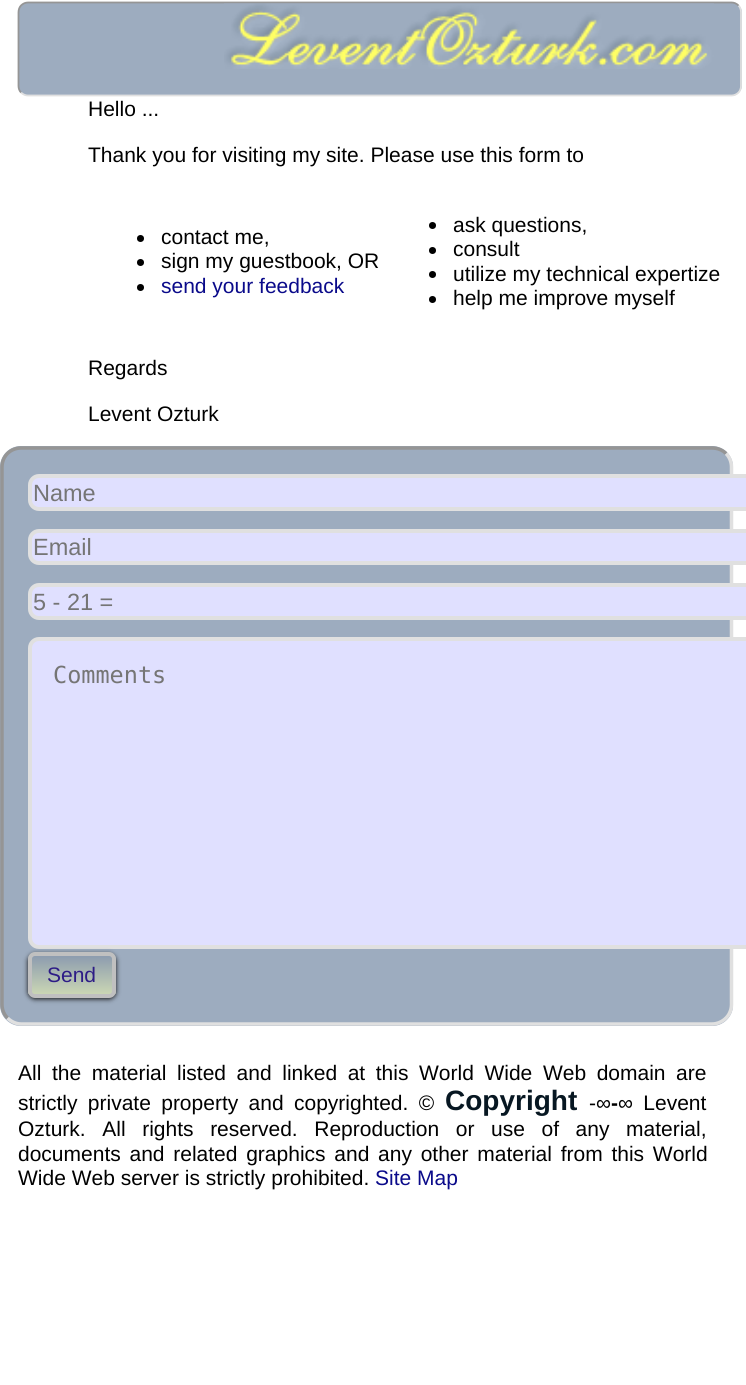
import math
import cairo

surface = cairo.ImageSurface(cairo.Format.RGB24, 746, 1385)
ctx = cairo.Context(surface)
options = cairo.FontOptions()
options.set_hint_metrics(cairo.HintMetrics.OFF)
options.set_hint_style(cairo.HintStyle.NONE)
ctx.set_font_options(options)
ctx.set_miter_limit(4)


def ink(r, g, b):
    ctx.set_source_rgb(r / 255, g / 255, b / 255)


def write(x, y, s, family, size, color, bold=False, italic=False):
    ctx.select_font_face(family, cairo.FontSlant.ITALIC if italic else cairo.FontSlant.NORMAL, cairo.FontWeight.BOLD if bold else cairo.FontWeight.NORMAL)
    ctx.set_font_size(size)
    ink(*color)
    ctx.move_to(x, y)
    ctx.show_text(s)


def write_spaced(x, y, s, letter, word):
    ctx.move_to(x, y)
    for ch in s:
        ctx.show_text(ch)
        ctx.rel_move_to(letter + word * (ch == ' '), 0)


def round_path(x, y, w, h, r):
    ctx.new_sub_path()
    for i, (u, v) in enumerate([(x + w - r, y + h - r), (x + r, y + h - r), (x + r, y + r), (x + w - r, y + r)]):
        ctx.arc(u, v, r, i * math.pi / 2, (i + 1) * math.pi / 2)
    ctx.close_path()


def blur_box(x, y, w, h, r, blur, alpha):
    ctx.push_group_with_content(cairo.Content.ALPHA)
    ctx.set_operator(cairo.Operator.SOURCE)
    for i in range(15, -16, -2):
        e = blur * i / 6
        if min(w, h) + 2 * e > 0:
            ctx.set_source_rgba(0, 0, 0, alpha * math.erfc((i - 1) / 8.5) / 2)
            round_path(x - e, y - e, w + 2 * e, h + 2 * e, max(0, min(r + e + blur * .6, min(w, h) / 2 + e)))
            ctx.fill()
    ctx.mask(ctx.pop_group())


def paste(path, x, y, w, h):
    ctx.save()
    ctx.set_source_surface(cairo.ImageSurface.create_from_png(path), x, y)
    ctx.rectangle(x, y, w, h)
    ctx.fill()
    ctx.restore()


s1 = dict(family="Liberation Sans", size=21, color=(0, 0, 0))
s2 = dict(family="Liberation Sans", size=21, color=(10, 10, 138))
s3 = dict(family="Liberation Sans", size=23.5, color=(117, 117, 117))
s4 = dict(family="DejaVu Sans Mono", size=23.5, color=(117, 117, 117))
s5 = dict(family="Liberation Sans", size=21, color=(45, 28, 134))
s6 = dict(family="Liberation Sans", size=28, color=(7, 23, 34), bold=True)
s7 = dict(family="Liberation Sans", size=21, color=(0, 0, 0), bold=True)

ink(255, 255, 255)
ctx.paint()
ink(157, 172, 191)
round_path(18, 2, 724, 94, 11)
ctx.fill()
ctx.new_path()
ctx.move_to(738.5, 5.5)
ctx.curve_to(740, 7, 741, 9.5, 741, 12)
ctx.line_to(741, 86)
ctx.curve_to(741, 88.5, 740, 91, 738.5, 92.5)
ctx.curve_to(736.5, 94.5, 734, 95.5, 731.5, 95.5)
ctx.line_to(28, 95.5)
ctx.curve_to(25.5, 95.5, 23, 94.5, 21, 92.5)
ink(224, 224, 224)
ctx.set_line_width(1.8)
ctx.stroke()
ctx.new_path()
ctx.move_to(21, 92.5)
ctx.curve_to(19.5, 91, 18.5, 88.5, 18.5, 86)
ctx.line_to(18.5, 12.5)
ctx.curve_to(18.5, 9.5, 19.5, 7, 21, 5.5)
ctx.curve_to(23, 3.5, 25.5, 2.5, 28, 2.5)
ctx.line_to(731.5, 2.5)
ctx.curve_to(734, 2.5, 736.5, 3.5, 738.5, 5.5)
ink(149, 149, 149)
ctx.stroke()
paste("pic1.png", 224, 3, 490, 66)
write(88, 116, "Hello ...", **s1)
write(88, 162, "Thank you for visiting my site. Please use this form to", **s1)
ctx.new_path()
ctx.arc(140.5, 238.5, 3.5, 0, 2 * math.pi)
ctx.fill()
write(161, 244, "contact me,", **s1)
ctx.new_path()
ctx.arc(140.5, 262.5, 3.5, 0, 2 * math.pi)
ctx.fill()
write(161, 268, "sign my guestbook, OR", **s1)
ctx.new_path()
ctx.arc(140.5, 287.5, 3.5, 0, 2 * math.pi)
ctx.fill()
write(161, 293, "send your feedback", **s2)
ink(0, 0, 0)
ctx.new_path()
ctx.arc(432.5, 225.5, 3.5, 0, 2 * math.pi)
ctx.fill()
write(453, 232, "ask questions,", **s1)
ctx.new_path()
ctx.arc(432.5, 250.5, 3.5, 0, 2 * math.pi)
ctx.fill()
write(453, 256, "consult", **s1)
ctx.new_path()
ctx.arc(432.5, 274.5, 3.5, 0, 2 * math.pi)
ctx.fill()
write(453, 281, "utilize my technical expertize", **s1)
ctx.new_path()
ctx.arc(432.5, 299.5, 3.5, 0, 2 * math.pi)
ctx.fill()
write(453, 305, "help me improve myself", **s1)
write(88, 375, "Regards", **s1)
write(88, 421, "Levent Ozturk", **s1)
ink(157, 172, 191)
round_path(0, 446, 733, 580, 21)
ctx.fill()
ctx.new_path()
ctx.move_to(726, 453.5)
ctx.curve_to(729.5, 457, 731.5, 462, 731.5, 467)
ctx.line_to(731.5, 1004.5)
ctx.curve_to(731.5, 1009.5, 729.5, 1014.5, 726, 1018)
ctx.curve_to(722.5, 1021.5, 717.5, 1024, 712, 1024)
ctx.line_to(21, 1024)
ctx.curve_to(16, 1024, 11, 1021.5, 7.5, 1018)
ink(224, 224, 224)
ctx.set_line_width(3.5)
ctx.stroke()
ctx.new_path()
ctx.move_to(7.5, 1018)
ctx.curve_to(4, 1014.5, 2, 1009.5, 2, 1004.5)
ctx.line_to(2, 467)
ctx.curve_to(2, 462, 4, 457, 7.5, 453.5)
ctx.curve_to(11, 450, 16, 448, 21, 448)
ctx.line_to(712, 448)
ctx.curve_to(717.5, 448, 722.5, 450, 726, 453.5)
ink(149, 149, 149)
ctx.stroke()
ink(224, 224, 255)
round_path(30, 476, 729, 33, 9)
ctx.fill_preserve()
ink(224, 224, 224)
ctx.set_line_width(4)
ctx.stroke()
write(33, 501, "Name", **s3)
ink(224, 224, 255)
round_path(30, 531, 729, 32, 9)
ctx.fill_preserve()
ink(224, 224, 224)
ctx.stroke()
write(33, 555, "Email", **s3)
ink(224, 224, 255)
round_path(30, 585, 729, 33, 9)
ctx.fill_preserve()
ink(224, 224, 224)
ctx.stroke()
write(33, 610, "5 - 21 =", **s3)
ink(224, 224, 255)
round_path(30, 639, 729, 308, 9)
ctx.fill_preserve()
ink(224, 224, 224)
ctx.stroke()
write(53, 683, "Comments", **s4)
ink(17, 17, 17)
blur_box(28, 954, 88, 45, 7, 2.5, 1)
ctx.save()
round_path(28, 952, 88, 46, 7)
ctx.clip()
gradient = cairo.LinearGradient(72, 956, 72, 994)
gradient.add_color_stop_rgba(0, 0.553, 0.612, 0.686, 1)
gradient.add_color_stop_rgba(1, 0.792, 0.839, 0.706, 1)
ctx.set_source(gradient)
ctx.rectangle(28, 956, 88, 38)
ctx.fill()
ctx.restore()
round_path(30, 954, 84, 42, 5)
ink(192, 192, 192)
ctx.stroke()
write(47, 982, "Send", **s5)
ink(0, 0, 0)
write_spaced(18, 1080, "All the material listed and linked at this World Wide Web domain are", 0, 4.75)
write_spaced(18, 1110, "strictly private property and copyrighted. ©", 0, 4.5)
write(445, 1110, "Copyright", **s6)
write(589, 1110, "-∞", **s1)
write(611, 1110, "-", **s7)
ctx.select_font_face("Liberation Sans")
write_spaced(618, 1110, "∞ Levent", 0, 4.5)
write_spaced(18, 1136, "Ozturk. All rights reserved. Reproduction or use of any material,", 0, 10.75)
write_spaced(18, 1161, "documents and related graphics and any other material from this World", 0, 2.9)
write(18, 1185, "Wide Web server is strictly prohibited.", **s1)
write(375, 1185, "Site Map", **s2)
surface.write_to_png("screenshot.png")
